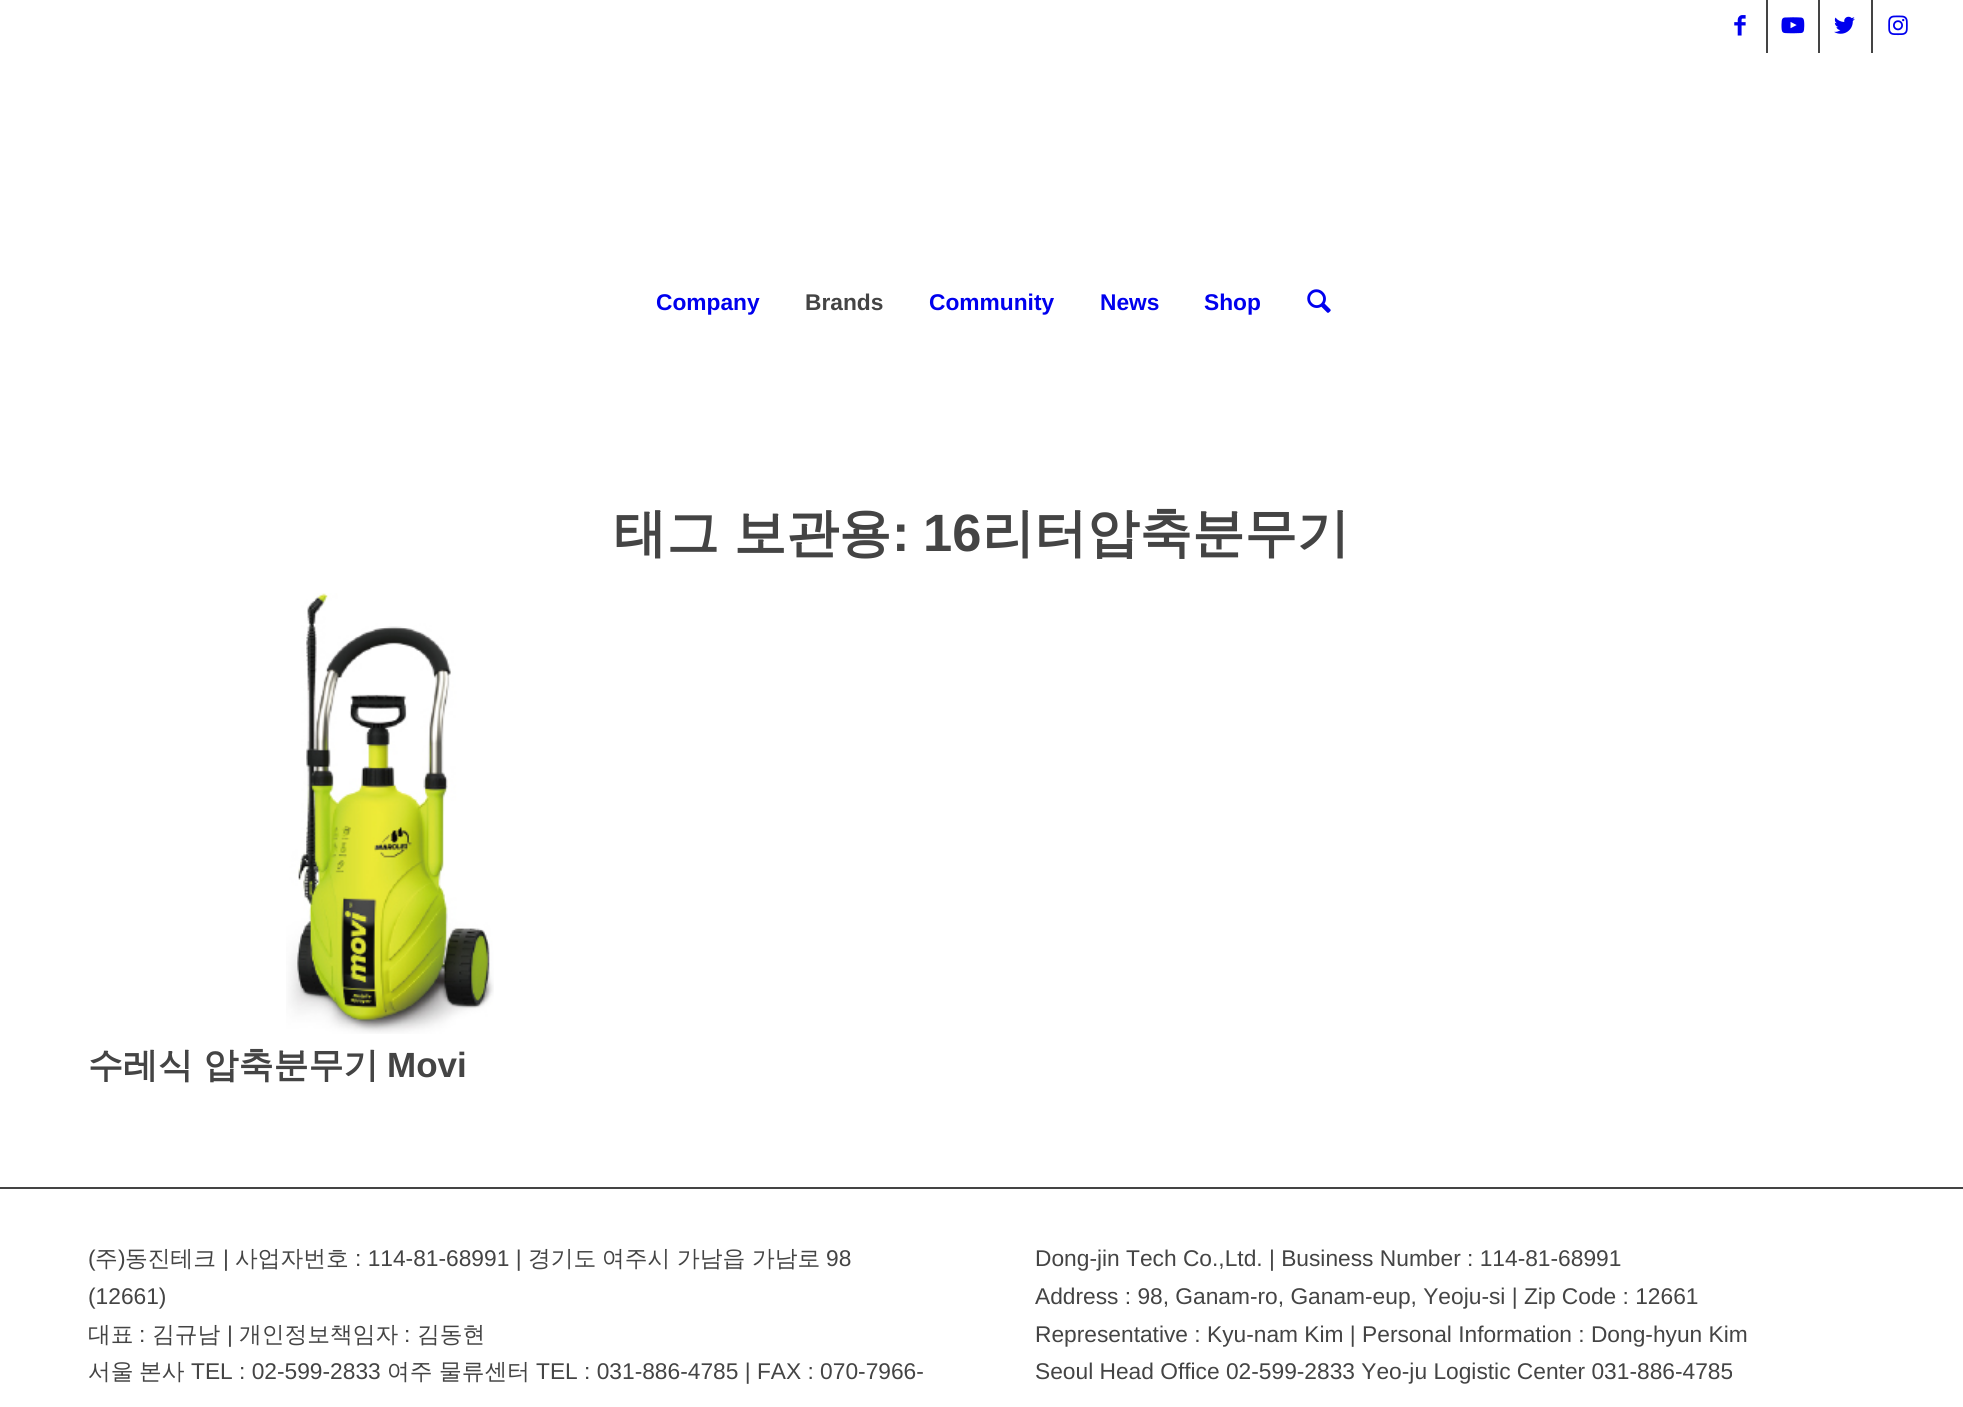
import math
import cairo

surface = cairo.ImageSurface(cairo.Format.RGB24, 1963, 1407)
ctx = cairo.Context(surface)
options = cairo.FontOptions()
options.set_hint_metrics(cairo.HintMetrics.OFF)
options.set_hint_style(cairo.HintStyle.NONE)
ctx.set_font_options(options)
ctx.set_miter_limit(4)


def ink(r, g, b):
    ctx.set_source_rgb(r / 255, g / 255, b / 255)


def write(x, y, s, family, size, color, bold=False, italic=False):
    ctx.select_font_face(family, cairo.FontSlant.ITALIC if italic else cairo.FontSlant.NORMAL, cairo.FontWeight.BOLD if bold else cairo.FontWeight.NORMAL)
    ctx.set_font_size(size)
    ink(*color)
    ctx.move_to(x, y)
    ctx.show_text(s)


def write_spaced(x, y, s, letter, word):
    ctx.move_to(x, y)
    for ch in s:
        ctx.show_text(ch)
        ctx.rel_move_to(letter + word * (ch == ' '), 0)


def block(x, y, w, h, *color):
    ink(*color)
    ctx.rectangle(x, y, w, h)
    ctx.fill()


def paste(path, x, y, w, h):
    ctx.save()
    ctx.set_source_surface(cairo.ImageSurface.create_from_png(path), x, y)
    ctx.rectangle(x, y, w, h)
    ctx.fill()
    ctx.restore()


s1 = dict(family="Liberation Sans", size=22.75, color=(0, 0, 238), bold=True)
s2 = dict(family="Liberation Sans", size=22.75, color=(68, 68, 68), bold=True)
s3 = dict(family="Liberation Sans", size=52.5, color=(68, 68, 68), bold=True)
s4 = dict(family="WenQuanYi Zen Hei", size=52.5, color=(68, 68, 68), bold=True)
s5 = dict(family="WenQuanYi Zen Hei", size=35, color=(68, 68, 68), bold=True)
s6 = dict(family="Liberation Sans", size=35, color=(68, 68, 68), bold=True)
s7 = dict(family="Liberation Sans", size=22.75, color=(68, 68, 68))
s8 = dict(family="WenQuanYi Zen Hei Medium", size=22.75, color=(68, 68, 68))

ink(255, 255, 255)
ctx.paint()
block(1766, 0, 2, 53, 68, 68, 68)
paste("pic1.png", 1734, 15, 12, 21)
block(1818, 0, 2, 53, 68, 68, 68)
paste("pic2.png", 1781, 17, 24, 17)
block(1871, 0, 2, 53, 68, 68, 68)
paste("pic3.png", 1834, 16, 21, 18)
paste("pic4.png", 1888, 15, 20, 21)
write(656, 310, "Company", **s1)
write(805, 310, "Brands", **s2)
write(929, 310, "Community", **s1)
write(1100, 310, "News", **s1)
write(1204, 310, "Shop", **s1)
paste("pic5.png", 1307, 289, 24, 24)
ctx.select_font_face("WenQuanYi Zen Hei", cairo.FontSlant.NORMAL, cairo.FontWeight.BOLD)
ctx.set_font_size(52.5)
ink(68, 68, 68)
write_spaced(614, 551, "태그 보관용", 0, -1)
write(892, 551, ":", **s3)
write(923, 551, "16", **s3)
write(982, 551, "리터압축분무기", **s4)
paste("pic6.png", 286, 593, 208, 441)
write(88, 1077, "수레식 압축분무기", **s5)
write(387, 1077, "Movi", **s6)
block(0, 1187, 1963, 2, 68, 68, 68)
write(88, 1266, "(", **s7)
write(95, 1266, "주", **s8)
write(118, 1266, ")", **s7)
write(125, 1266, "동진테크", **s8)
write(223, 1266, "|", **s7)
write(235, 1266, "사업자번호", **s8)
write(355, 1266, ": 114-81-68991 |", **s7)
write(528, 1266, "경기도", **s8)
write(602, 1266, "여주시", **s8)
write(677, 1266, "가남읍", **s8)
write(752, 1266, "가남로", **s8)
write(826, 1266, "98", **s7)
write(88, 1304, "(12661)", **s7)
write(88, 1342, "대표", **s8)
write(139, 1342, ":", **s7)
write(152, 1342, "김규남", **s8)
write(227, 1342, "|", **s7)
write(239, 1342, "개인정보책임자", **s8)
write(404, 1342, ":", **s7)
write(417, 1342, "김동현", **s8)
write(88, 1379, "서울", **s8)
write(139, 1379, "본사", **s8)
write(191, 1379, "TEL : 02-599-2833", **s7)
write(387, 1379, "여주", **s8)
write(439, 1379, "물류센터", **s8)
write(536, 1379, "TEL : 031-886-4785 | FAX : 070-7966-", **s7)
write(1035, 1266, "Dong-jin Tech Co.,Ltd. | Business Number : 114-81-68991", **s7)
write(1035, 1304, "Address : 98, Ganam-ro, Ganam-eup, Yeoju-si | Zip Code : 12661", **s7)
write(1035, 1342, "Representative : Kyu-nam Kim | Personal Information : Dong-hyun Kim", **s7)
write(1035, 1379, "Seoul Head Office 02-599-2833 Yeo-ju Logistic Center 031-886-4785", **s7)
surface.write_to_png("screenshot.png")
